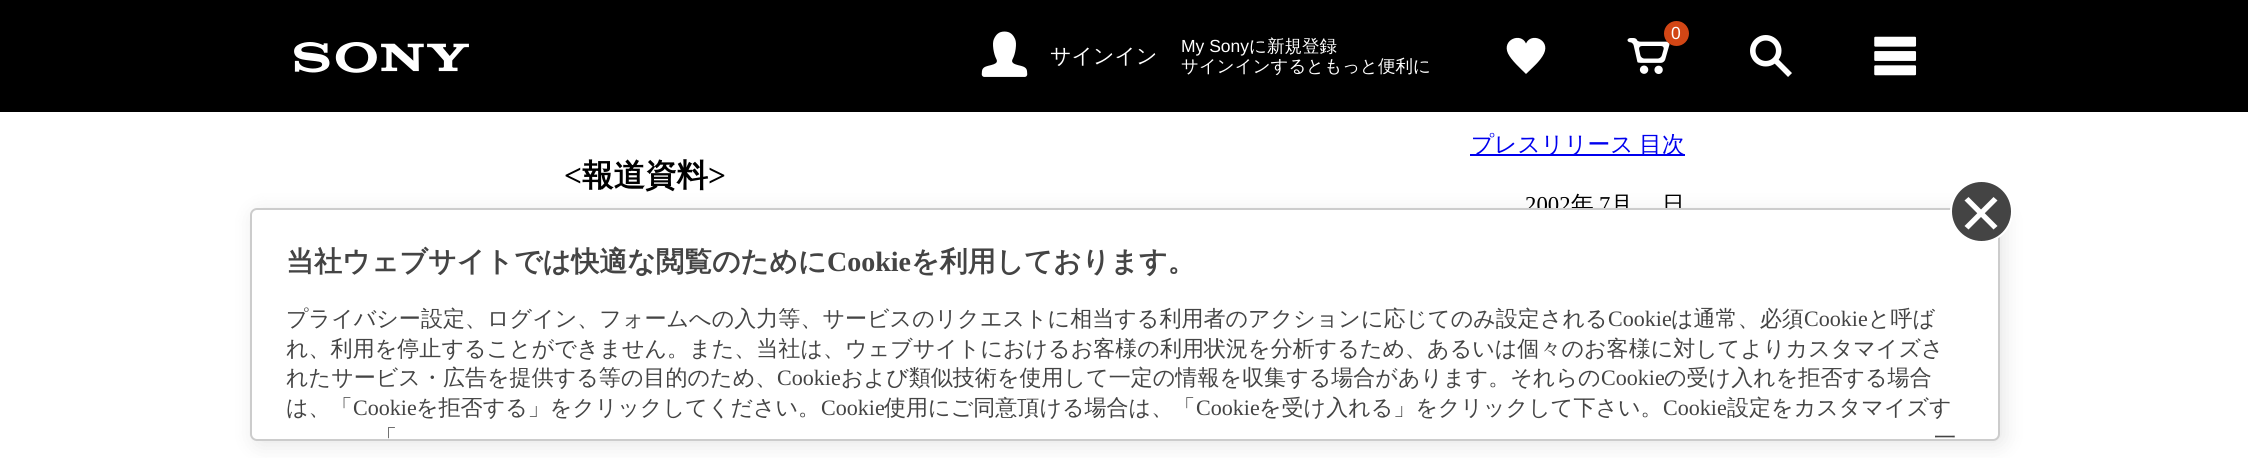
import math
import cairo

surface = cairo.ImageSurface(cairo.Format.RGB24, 2248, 458)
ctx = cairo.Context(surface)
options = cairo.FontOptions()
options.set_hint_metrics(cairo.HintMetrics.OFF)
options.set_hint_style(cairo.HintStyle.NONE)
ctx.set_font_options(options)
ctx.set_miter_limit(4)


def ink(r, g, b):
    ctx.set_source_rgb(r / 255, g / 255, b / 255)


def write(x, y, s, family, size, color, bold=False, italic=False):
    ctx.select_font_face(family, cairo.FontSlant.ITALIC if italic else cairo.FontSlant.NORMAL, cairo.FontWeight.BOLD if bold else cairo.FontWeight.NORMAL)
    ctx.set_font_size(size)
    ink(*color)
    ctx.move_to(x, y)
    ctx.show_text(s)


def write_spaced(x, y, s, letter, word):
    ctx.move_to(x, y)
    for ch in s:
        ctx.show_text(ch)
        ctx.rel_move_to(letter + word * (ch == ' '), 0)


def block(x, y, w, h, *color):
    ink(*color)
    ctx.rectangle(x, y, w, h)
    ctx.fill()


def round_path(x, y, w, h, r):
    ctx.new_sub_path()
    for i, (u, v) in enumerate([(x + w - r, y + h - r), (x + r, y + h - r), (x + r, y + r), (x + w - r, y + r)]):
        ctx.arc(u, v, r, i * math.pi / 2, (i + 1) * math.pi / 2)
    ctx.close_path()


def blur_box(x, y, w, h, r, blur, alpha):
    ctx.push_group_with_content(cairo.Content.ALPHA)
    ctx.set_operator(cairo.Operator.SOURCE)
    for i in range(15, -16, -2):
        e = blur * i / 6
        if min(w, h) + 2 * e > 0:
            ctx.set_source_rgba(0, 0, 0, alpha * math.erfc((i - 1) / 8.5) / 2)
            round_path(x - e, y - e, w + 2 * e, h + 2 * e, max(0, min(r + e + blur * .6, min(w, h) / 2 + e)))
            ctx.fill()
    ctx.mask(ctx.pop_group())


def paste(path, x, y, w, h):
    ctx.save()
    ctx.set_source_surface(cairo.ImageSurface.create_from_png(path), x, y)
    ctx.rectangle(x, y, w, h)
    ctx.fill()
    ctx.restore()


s1 = dict(family="Liberation Sans", size=17.5, color=(255, 255, 255))
s2 = dict(family="WenQuanYi Zen Hei Medium", size=21, color=(255, 255, 255))
s3 = dict(family="WenQuanYi Zen Hei Medium", size=17.5, color=(255, 255, 255))
s4 = dict(family="Liberation Serif", size=31.5, color=(0, 0, 0), bold=True)
s5 = dict(family="WenQuanYi Zen Hei", size=31.5, color=(0, 0, 0), bold=True)
s6 = dict(family="Liberation Serif", size=22.75, color=(0, 0, 0))
s7 = dict(family="WenQuanYi Zen Hei Medium", size=22.75, color=(0, 0, 0))
s8 = dict(family="WenQuanYi Zen Hei", size=28, color=(68, 68, 68), bold=True)
s9 = dict(family="Liberation Serif", size=28, color=(68, 68, 68), bold=True)
s10 = dict(family="WenQuanYi Zen Hei Medium", size=22.05, color=(68, 68, 68))
s11 = dict(family="Liberation Serif", size=22.05, color=(68, 68, 68))

ink(255, 255, 255)
ctx.paint()
block(0, 0, 2248, 112, 0, 0, 0)
paste("pic1.png", 294, 42, 175, 31)
paste("pic2.png", 1627, 38, 43, 36)
ink(210, 70, 21)
ctx.arc(1676.5, 33.5, 12.5, 0, 2 * math.pi)
ctx.fill()
write(1671, 39, "0", **s1)
paste("pic3.png", 981, 31, 47, 46)
write(1050, 63, "サインイン", **s2)
write(1181, 52, "My Sony", **s1)
write(1249, 52, "に新規登録", **s3)
write(1181, 72, "サインインするともっと便利に", **s3)
ctx.new_path()
ctx.move_to(1526, 74)
ctx.curve_to(1520.5, 68.5, 1511.5, 60.5, 1508, 53.5)
ctx.curve_to(1501.5, 39.5, 1521, 32, 1526, 43.5)
ctx.curve_to(1531, 32, 1550.5, 39.5, 1544, 53.5)
ctx.curve_to(1540.5, 61, 1532, 68, 1526, 74)
ctx.close_path()
ctx.fill()
paste("pic4.png", 1750, 35, 42, 42)
paste("pic5.png", 1874, 36, 43, 40)
write(564, 186, "<", **s4)
write(582, 186, "報道資料", **s5)
write(708, 186, ">", **s4)
block(1470, 154, 215, 2, 0, 0, 238)
ctx.select_font_face("WenQuanYi Zen Hei Medium")
ctx.set_font_size(22.75)
write_spaced(1471, 152, "プレスリリース 目次", 0, -1)
write(1525, 212, "2002", **s6)
write(1571, 212, "年", **s7)
write(1599, 212, "7", **s6)
write(1610, 212, "月", **s7)
write(1662, 212, "日", **s7)
ink(0, 0, 0)
blur_box(254, 212, 1750, 233, 7, 10.5, 0.1)
ink(255, 255, 255)
round_path(251, 209, 1748, 231, 6)
ctx.fill_preserve()
ink(204, 204, 204)
ctx.stroke()
ink(68, 68, 68)
ctx.arc(1981.5, 211.5, 30.5, 0, 2 * math.pi)
ctx.fill_preserve()
ink(255, 255, 255)
ctx.stroke()
ctx.new_path()
ctx.move_to(1964.5, 226)
ctx.line_to(1993.5, 197)
ctx.line_to(1997.5, 200.5)
ctx.line_to(1968.5, 229.5)
ctx.close_path()
ctx.fill()
ctx.new_path()
ctx.move_to(1968.5, 197)
ctx.line_to(1997.5, 226)
ctx.line_to(1993.5, 229.5)
ctx.line_to(1964.5, 200.5)
ctx.close_path()
ctx.fill()
write(286, 271, "当社ウェブサイトでは快適な閲覧のために", **s8)
write(827, 271, "Cookie", **s9)
write(911, 271, "を利用しております。", **s8)
write(286, 326, "プライバシー設定、ログイン、フォームへの入力等、サービスのリクエストに相当する利用者のアクションに応じてのみ設定される", **s10)
write(1608, 326, "Cookie", **s11)
write(1671, 326, "は通常、必須", **s10)
write(1804, 326, "Cookie", **s11)
write(1868, 326, "と呼ば", **s10)
write(286, 356, "れ、利用を停止することができません。また、当社は、ウェブサイトにおけるお客様の利用状況を分析するため、あるいは個々のお客様に対してよりカスタマイズさ", **s10)
write(286, 385, "れたサービス・広告を提供する等の目的のため、", **s10)
write(777, 385, "Cookie", **s11)
write(841, 385, "および類似技術を使用して一定の情報を収集する場合があります。それらの", **s10)
write(1601, 385, "Cookie", **s11)
write(1664, 385, "の受け入れを拒否する場合", **s10)
write(286, 415, "は、「", **s10)
write(353, 415, "Cookie", **s11)
write(416, 415, "を拒否する」をクリックしてください。", **s10)
write(821, 415, "Cookie", **s11)
write(884, 415, "使用にご同意頂ける場合は、「", **s10)
write(1196, 415, "Cookie", **s11)
write(1259, 415, "を受け入れる」をクリックして下さい。", **s10)
write(1663, 415, "Cookie", **s11)
write(1727, 415, "設定をカスタマイズす", **s10)
write(375, 445, "「", **s10)
write(1934, 445, "一", **s10)
surface.write_to_png("screenshot.png")
